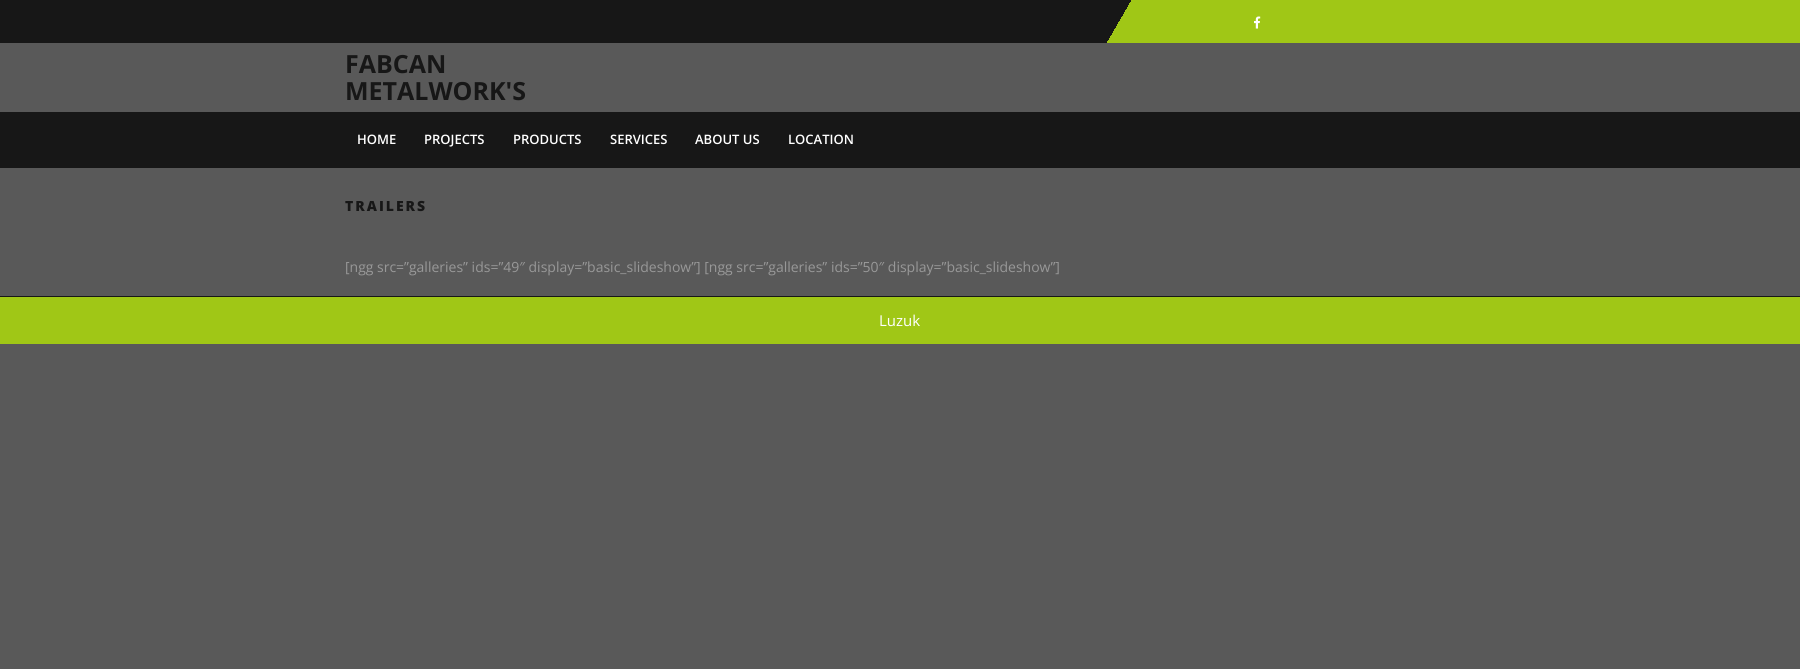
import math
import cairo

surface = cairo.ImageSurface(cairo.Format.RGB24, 1800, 669)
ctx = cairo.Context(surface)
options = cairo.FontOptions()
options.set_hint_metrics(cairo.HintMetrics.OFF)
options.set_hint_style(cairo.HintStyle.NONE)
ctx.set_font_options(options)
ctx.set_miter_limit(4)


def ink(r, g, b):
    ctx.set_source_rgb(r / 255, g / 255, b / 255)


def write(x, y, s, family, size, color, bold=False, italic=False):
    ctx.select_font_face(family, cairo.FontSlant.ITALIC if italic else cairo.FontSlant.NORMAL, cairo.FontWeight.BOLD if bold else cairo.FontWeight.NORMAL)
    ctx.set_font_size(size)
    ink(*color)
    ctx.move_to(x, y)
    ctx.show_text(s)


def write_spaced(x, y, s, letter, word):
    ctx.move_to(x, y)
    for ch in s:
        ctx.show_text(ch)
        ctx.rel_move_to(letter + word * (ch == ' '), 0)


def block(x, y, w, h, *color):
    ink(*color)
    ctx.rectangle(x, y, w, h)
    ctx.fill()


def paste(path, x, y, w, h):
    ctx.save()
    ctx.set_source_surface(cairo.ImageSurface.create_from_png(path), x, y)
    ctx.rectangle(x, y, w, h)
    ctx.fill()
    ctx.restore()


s1 = dict(family="Open Sans", size=25, color=(23, 23, 23), bold=True)
s2 = dict(family="Open Sans SemiBold", size=13, color=(255, 255, 255))
s3 = dict(family="Open Sans", size=14, color=(152, 152, 152))
s4 = dict(family="Open Sans", size=15, color=(255, 255, 255))

ink(89, 89, 89)
ctx.paint()
gradient = cairo.LinearGradient(216, -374, 1584, 417)
gradient.add_color_stop_rgba(0.62, 0.09, 0.09, 0.09, 1)
gradient.add_color_stop_rgba(0.62, 0.627, 0.78, 0.086, 1)
ctx.set_source(gradient)
ctx.rectangle(0, 0, 1800, 43)
ctx.fill()
paste("pic1.png", 1254, 16, 7, 13)
block(0, 112, 1800, 56, 23, 23, 23)
write(345, 73, "FABCAN", **s1)
write(345, 100, "METALWORK'S", **s1)
write(357, 144, "HOME", **s2)
write(424, 144, "PROJECTS", **s2)
write(513, 144, "PRODUCTS", **s2)
write(610, 144, "SERVICES", **s2)
write(695, 144, "ABOUT US", **s2)
write(788, 144, "LOCATION", **s2)
ctx.select_font_face("Open Sans ExtraBold")
ctx.set_font_size(14)
ink(23, 23, 23)
write_spaced(345, 211, "TRAILERS", 2, 0)
write(345, 272, "[ngg src=”galleries” ids=”49″ display=”basic_slideshow”] [ngg src=”galleries” ids=”50″ display=”basic_slideshow”]", **s3)
block(0, 296, 1800, 1, 23, 23, 23)
block(0, 297, 1800, 47, 160, 199, 22)
write(879, 326, "Luzuk", **s4)
surface.write_to_png("screenshot.png")
